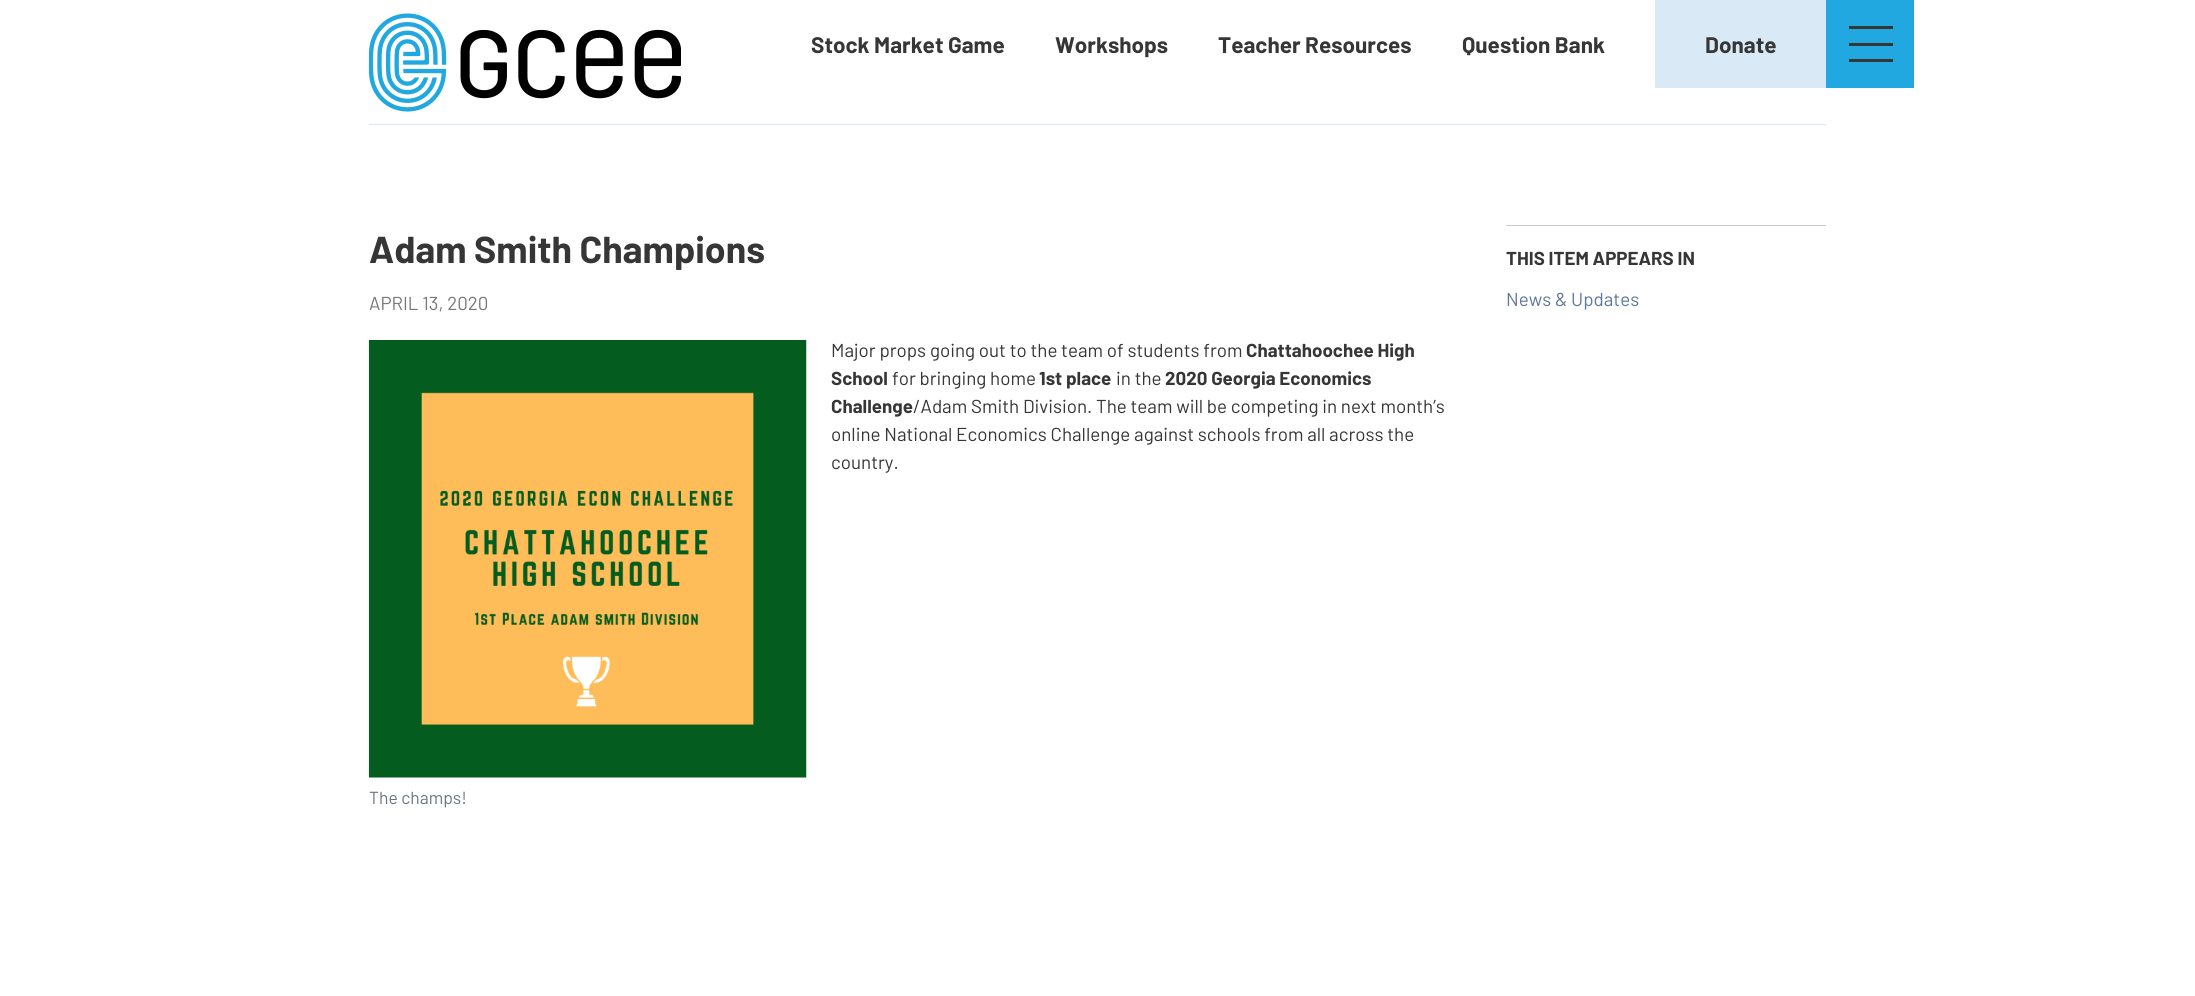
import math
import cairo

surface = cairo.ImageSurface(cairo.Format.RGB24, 2195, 996)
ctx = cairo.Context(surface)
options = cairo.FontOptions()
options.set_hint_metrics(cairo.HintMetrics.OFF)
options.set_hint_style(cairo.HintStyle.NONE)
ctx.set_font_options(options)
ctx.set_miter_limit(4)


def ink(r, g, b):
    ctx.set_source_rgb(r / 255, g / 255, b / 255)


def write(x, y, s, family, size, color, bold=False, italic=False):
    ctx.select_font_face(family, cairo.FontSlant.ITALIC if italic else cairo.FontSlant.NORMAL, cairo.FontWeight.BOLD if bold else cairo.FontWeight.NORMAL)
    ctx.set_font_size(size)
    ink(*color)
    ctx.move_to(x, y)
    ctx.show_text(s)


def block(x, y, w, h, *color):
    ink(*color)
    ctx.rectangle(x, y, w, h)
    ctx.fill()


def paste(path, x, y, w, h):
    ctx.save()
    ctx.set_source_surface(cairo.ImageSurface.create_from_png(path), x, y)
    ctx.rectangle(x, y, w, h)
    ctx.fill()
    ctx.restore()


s1 = dict(family="Barlow", size=22.5, color=(54, 54, 54), bold=True)
s2 = dict(family="Barlow", size=37.5, color=(54, 54, 54), bold=True)
s3 = dict(family="Barlow", size=18.75, color=(119, 119, 119))
s4 = dict(family="Barlow", size=18.75, color=(54, 54, 54))
s5 = dict(family="Barlow", size=18.75, color=(54, 54, 54), bold=True)
s6 = dict(family="Barlow", size=17.5, color=(108, 117, 125))
s7 = dict(family="Barlow", size=18.75, color=(92, 120, 153))

ink(255, 255, 255)
ctx.paint()
block(369, 124, 1457, 1, 217, 233, 245)
paste("pic1.png", 369, 13, 312, 99)
block(1826, 0, 88, 88, 34, 168, 224)
block(1849, 43, 44, 3, 54, 54, 54)
block(1849, 26, 44, 3, 54, 54, 54)
block(1849, 59, 44, 3, 54, 54, 54)
write(811, 53, "Stock Market Game", **s1)
write(1055, 53, "Workshops", **s1)
write(1218, 53, "Teacher Resources", **s1)
write(1462, 53, "Question Bank", **s1)
block(1655, 0, 171, 88, 217, 233, 245)
write(1705, 53, "Donate", **s1)
write(369, 263, "Adam Smith Champions", **s2)
write(369, 310, "APRIL 13, 2020", **s3)
write(831, 357, "Major props going out to the team of students from", **s4)
write(1246, 357, "Chattahoochee High", **s5)
write(831, 385, "School", **s5)
write(892, 385, "for bringing home", **s4)
write(1039, 385, "1st place", **s5)
write(1116, 385, "in the", **s4)
write(1165, 385, "2020 Georgia Economics", **s5)
write(831, 413, "Challenge", **s5)
write(913, 413, "/Adam Smith Division. The team will be competing in next month’s", **s4)
write(831, 441, "online National Economics Challenge against schools from all across the", **s4)
write(831, 469, "country.", **s4)
paste("pic2.png", 368, 340, 439, 438)
write(369, 804, "The champs!", **s6)
block(1506, 225, 320, 1, 204, 204, 204)
write(1506, 265, "THIS ITEM APPEARS IN", **s5)
write(1506, 306, "News & Updates", **s7)
surface.write_to_png("screenshot.png")
